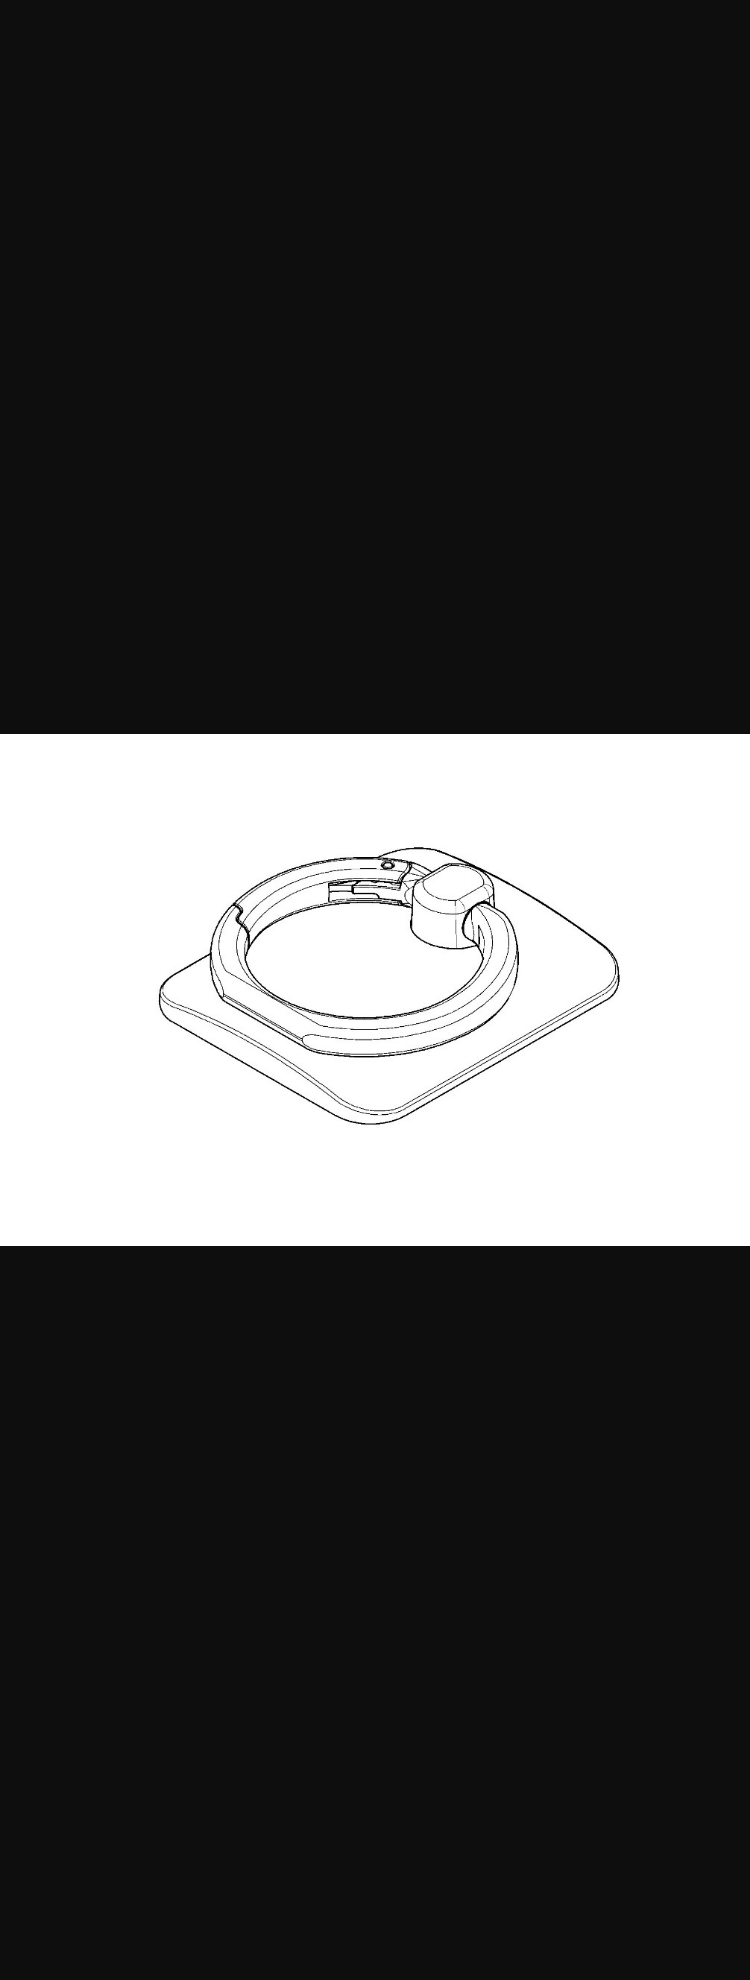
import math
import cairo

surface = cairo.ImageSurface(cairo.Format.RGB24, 750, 1980)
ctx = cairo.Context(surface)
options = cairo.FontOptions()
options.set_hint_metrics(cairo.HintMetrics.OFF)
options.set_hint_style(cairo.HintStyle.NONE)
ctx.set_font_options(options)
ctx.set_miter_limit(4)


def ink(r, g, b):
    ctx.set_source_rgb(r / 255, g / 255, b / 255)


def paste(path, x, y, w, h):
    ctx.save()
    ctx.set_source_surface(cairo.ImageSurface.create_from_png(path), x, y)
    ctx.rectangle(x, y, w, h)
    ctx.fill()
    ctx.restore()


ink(14, 14, 14)
ctx.paint()
paste("pic1.png", 0, 734, 750, 512)
surface.write_to_png("screenshot.png")
